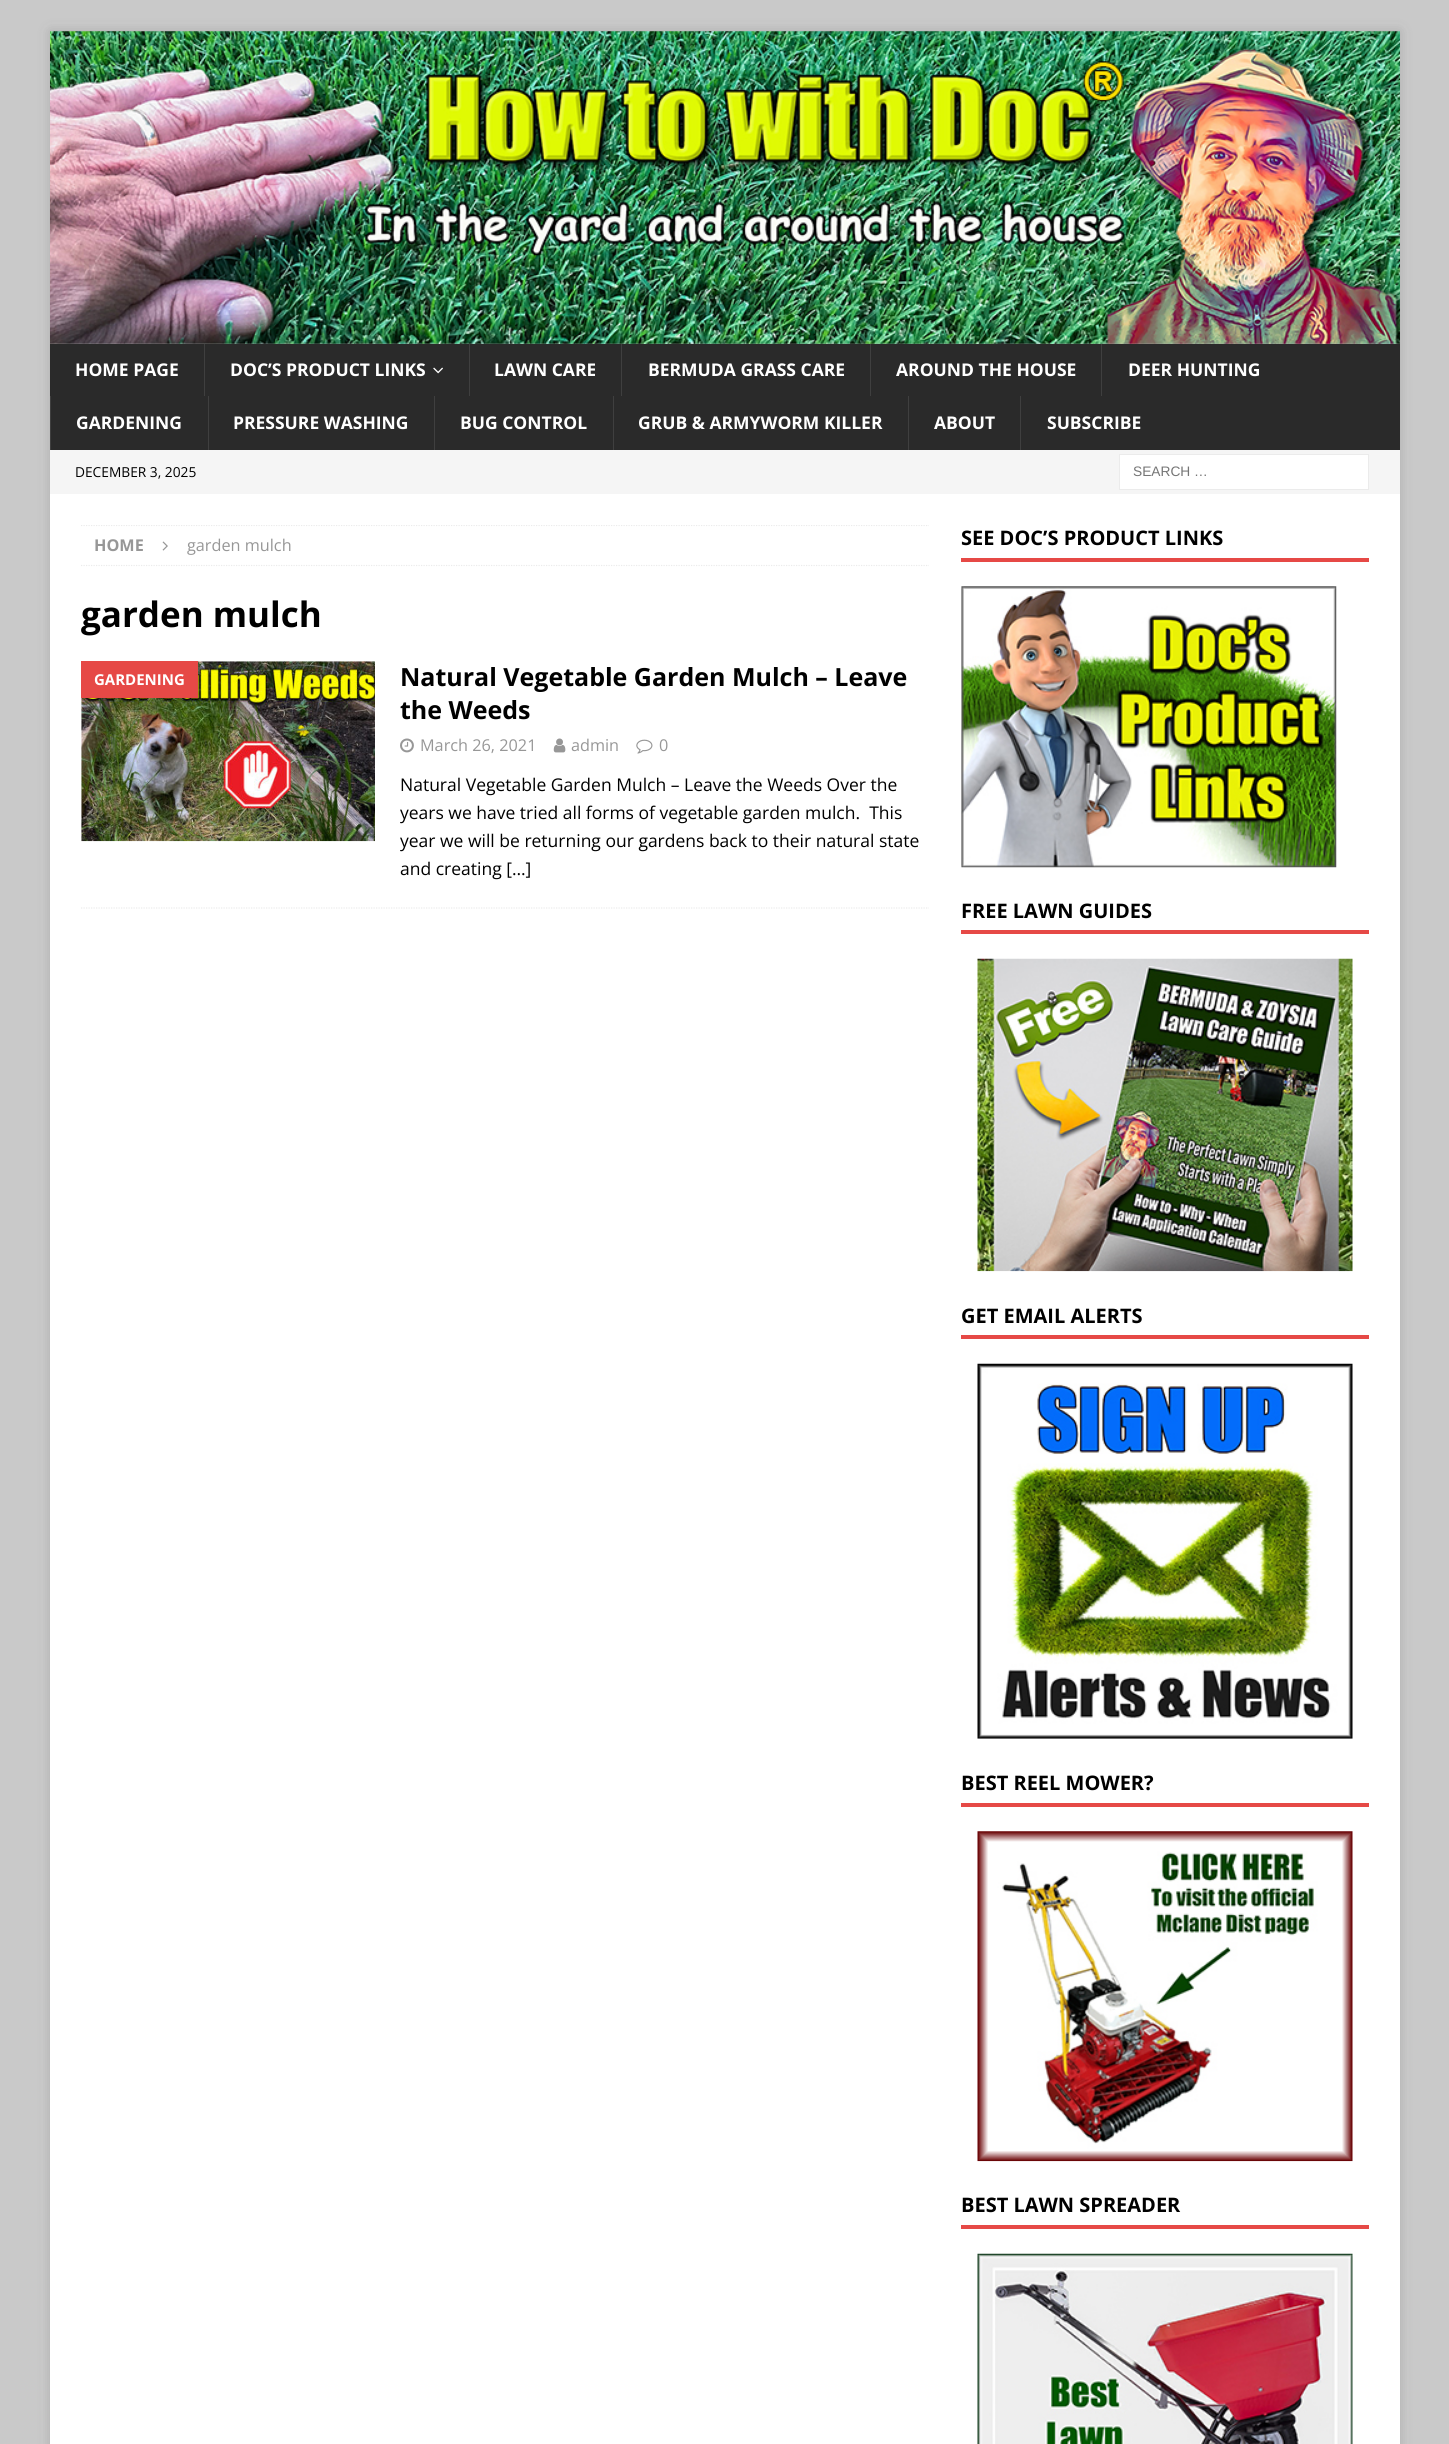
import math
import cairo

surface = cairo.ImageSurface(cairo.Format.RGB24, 1449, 2444)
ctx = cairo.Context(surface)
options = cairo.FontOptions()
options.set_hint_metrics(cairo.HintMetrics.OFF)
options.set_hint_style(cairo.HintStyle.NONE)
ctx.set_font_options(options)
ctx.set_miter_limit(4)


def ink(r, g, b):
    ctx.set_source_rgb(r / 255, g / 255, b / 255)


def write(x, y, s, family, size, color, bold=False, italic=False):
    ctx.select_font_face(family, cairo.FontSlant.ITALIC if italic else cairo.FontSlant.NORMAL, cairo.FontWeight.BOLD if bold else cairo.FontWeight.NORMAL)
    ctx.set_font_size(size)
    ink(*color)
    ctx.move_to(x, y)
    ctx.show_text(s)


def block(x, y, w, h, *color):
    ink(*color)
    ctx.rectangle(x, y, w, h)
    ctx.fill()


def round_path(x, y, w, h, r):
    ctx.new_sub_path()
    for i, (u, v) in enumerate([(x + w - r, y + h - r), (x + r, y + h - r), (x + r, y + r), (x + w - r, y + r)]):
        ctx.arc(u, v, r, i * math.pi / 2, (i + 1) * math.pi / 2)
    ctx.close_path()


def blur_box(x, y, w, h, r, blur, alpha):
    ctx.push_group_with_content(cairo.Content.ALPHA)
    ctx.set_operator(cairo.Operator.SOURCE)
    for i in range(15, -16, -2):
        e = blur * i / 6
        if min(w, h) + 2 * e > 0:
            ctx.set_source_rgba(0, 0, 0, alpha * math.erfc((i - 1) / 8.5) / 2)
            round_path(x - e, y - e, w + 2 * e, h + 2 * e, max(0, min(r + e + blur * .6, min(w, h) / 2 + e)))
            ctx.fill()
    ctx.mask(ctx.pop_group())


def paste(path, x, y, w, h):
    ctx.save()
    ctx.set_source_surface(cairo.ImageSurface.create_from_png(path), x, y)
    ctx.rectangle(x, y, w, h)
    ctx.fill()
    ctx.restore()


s1 = dict(family="Open Sans", size=17.5, color=(255, 255, 255), bold=True)
s2 = dict(family="Open Sans", size=13.75, color=(0, 0, 0))
s3 = dict(family="Liberation Sans", size=13.75, color=(117, 117, 117))
s4 = dict(family="Open Sans", size=16.25, color=(151, 151, 151), bold=True)
s5 = dict(family="Open Sans", size=16.25, color=(151, 151, 151))
s6 = dict(family="Open Sans", size=35, color=(0, 0, 0), bold=True)
s7 = dict(family="Open Sans", size=15, color=(255, 255, 255), bold=True)
s8 = dict(family="Open Sans", size=25, color=(0, 0, 0), bold=True)
s9 = dict(family="Open Sans", size=17.5, color=(0, 0, 0))
s10 = dict(family="Open Sans", size=20, color=(0, 0, 0), bold=True)

ink(201, 201, 201)
ctx.paint()
ink(50, 50, 50)
blur_box(50, 31, 1350, 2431, 0, 6, 0.17)
paste("pic1.png", 50, 31, 1350, 313)
block(50, 344, 1350, 106, 42, 42, 42)
write(75, 376, "HOME PAGE", **s1)
block(204, 344, 1, 52, 63, 63, 63)
write(230, 376, "DOC’S PRODUCT LINKS", **s1)
paste("pic2.png", 433, 367, 10, 7)
block(469, 344, 1, 52, 63, 63, 63)
write(494, 376, "LAWN CARE", **s1)
block(621, 344, 1, 52, 63, 63, 63)
write(648, 376, "BERMUDA GRASS CARE", **s1)
block(870, 344, 1, 52, 63, 63, 63)
write(896, 376, "AROUND THE HOUSE", **s1)
block(1101, 344, 1, 52, 63, 63, 63)
write(1128, 376, "DEER HUNTING", **s1)
block(50, 396, 1, 54, 63, 63, 63)
write(76, 429, "GARDENING", **s1)
block(208, 396, 1, 54, 63, 63, 63)
write(233, 429, "PRESSURE WASHING", **s1)
block(434, 396, 1, 54, 63, 63, 63)
write(460, 429, "BUG CONTROL", **s1)
block(613, 396, 1, 54, 63, 63, 63)
write(638, 429, "GRUB & ARMYWORM KILLER", **s1)
block(908, 396, 1, 54, 63, 63, 63)
write(934, 429, "ABOUT", **s1)
block(1020, 396, 1, 54, 63, 63, 63)
write(1047, 429, "SUBSCRIBE", **s1)
block(50, 450, 1350, 44, 245, 245, 245)
write(75, 477, "DECEMBER 3, 2025", **s2)
ink(255, 255, 255)
ctx.rectangle(1119.5, 454.5, 249, 35)
ctx.fill_preserve()
ink(235, 235, 235)
ctx.set_line_width(1)
ctx.stroke()
write(1133, 476, "SEARCH …", **s3)
block(50, 494, 1350, 1950, 255, 255, 255)
ctx.save()
ctx.rectangle(81, 525, 848, 384)
ctx.clip()
ctx.new_path()
ctx.move_to(81, 525.5)
ctx.line_to(929, 525.5)
ink(235, 235, 235)
ctx.set_line_width(1.2)
ctx.set_dash([1.25, 1.25])
ctx.stroke()
ctx.restore()
ctx.new_path()
ctx.move_to(81, 565.5)
ctx.line_to(929, 565.5)
ink(235, 235, 235)
ctx.set_line_width(1.2)
ctx.set_dash([1.25, 1.25])
ctx.stroke()
write(94, 551, "HOME", **s4)
paste("pic3.png", 162, 541, 6, 10)
write(187, 551, "garden mulch", **s5)
write(81, 627, "garden mulch", **s6)
ctx.new_path()
ctx.move_to(81, 908)
ctx.line_to(929, 908)
ink(235, 235, 235)
ctx.stroke()
paste("pic4.png", 81, 661, 294, 181)
block(81, 661, 117, 37, 230, 73, 70)
write(94, 685, "GARDENING", **s7)
write(400, 686, "Natural Vegetable Garden Mulch – Leave", **s8)
write(400, 719, "the Weeds", **s8)
paste("pic5.png", 400, 738, 14, 15)
write(420, 751, "March 26, 2021", **s5)
paste("pic6.png", 553, 738, 13, 15)
write(571, 751, "admin", **s5)
paste("pic7.png", 636, 739, 17, 15)
write(659, 751, "0", **s5)
write(400, 791, "Natural Vegetable Garden Mulch – Leave the Weeds Over the", **s9)
write(400, 819, "years we have tried all forms of vegetable garden mulch.  This", **s9)
write(400, 847, "year we will be returning our gardens back to their natural state", **s9)
write(400, 875, "and creating […]", **s9)
block(961, 558, 408, 4, 230, 73, 70)
write(961, 545, "SEE DOC’S PRODUCT LINKS", **s10)
paste("pic8.png", 961, 586, 376, 282)
block(961, 930, 408, 4, 230, 73, 70)
write(961, 918, "FREE LAWN GUIDES", **s10)
paste("pic9.png", 977, 958, 376, 314)
block(961, 1335, 408, 4, 230, 73, 70)
write(961, 1323, "GET EMAIL ALERTS", **s10)
paste("pic10.png", 977, 1363, 376, 376)
block(961, 1803, 408, 4, 230, 73, 70)
write(961, 1790, "BEST REEL MOWER?", **s10)
paste("pic11.png", 977, 1831, 376, 331)
block(961, 2225, 408, 4, 230, 73, 70)
write(961, 2212, "BEST LAWN SPREADER", **s10)
paste("pic12.png", 977, 2253, 376, 191)
surface.write_to_png("screenshot.png")
